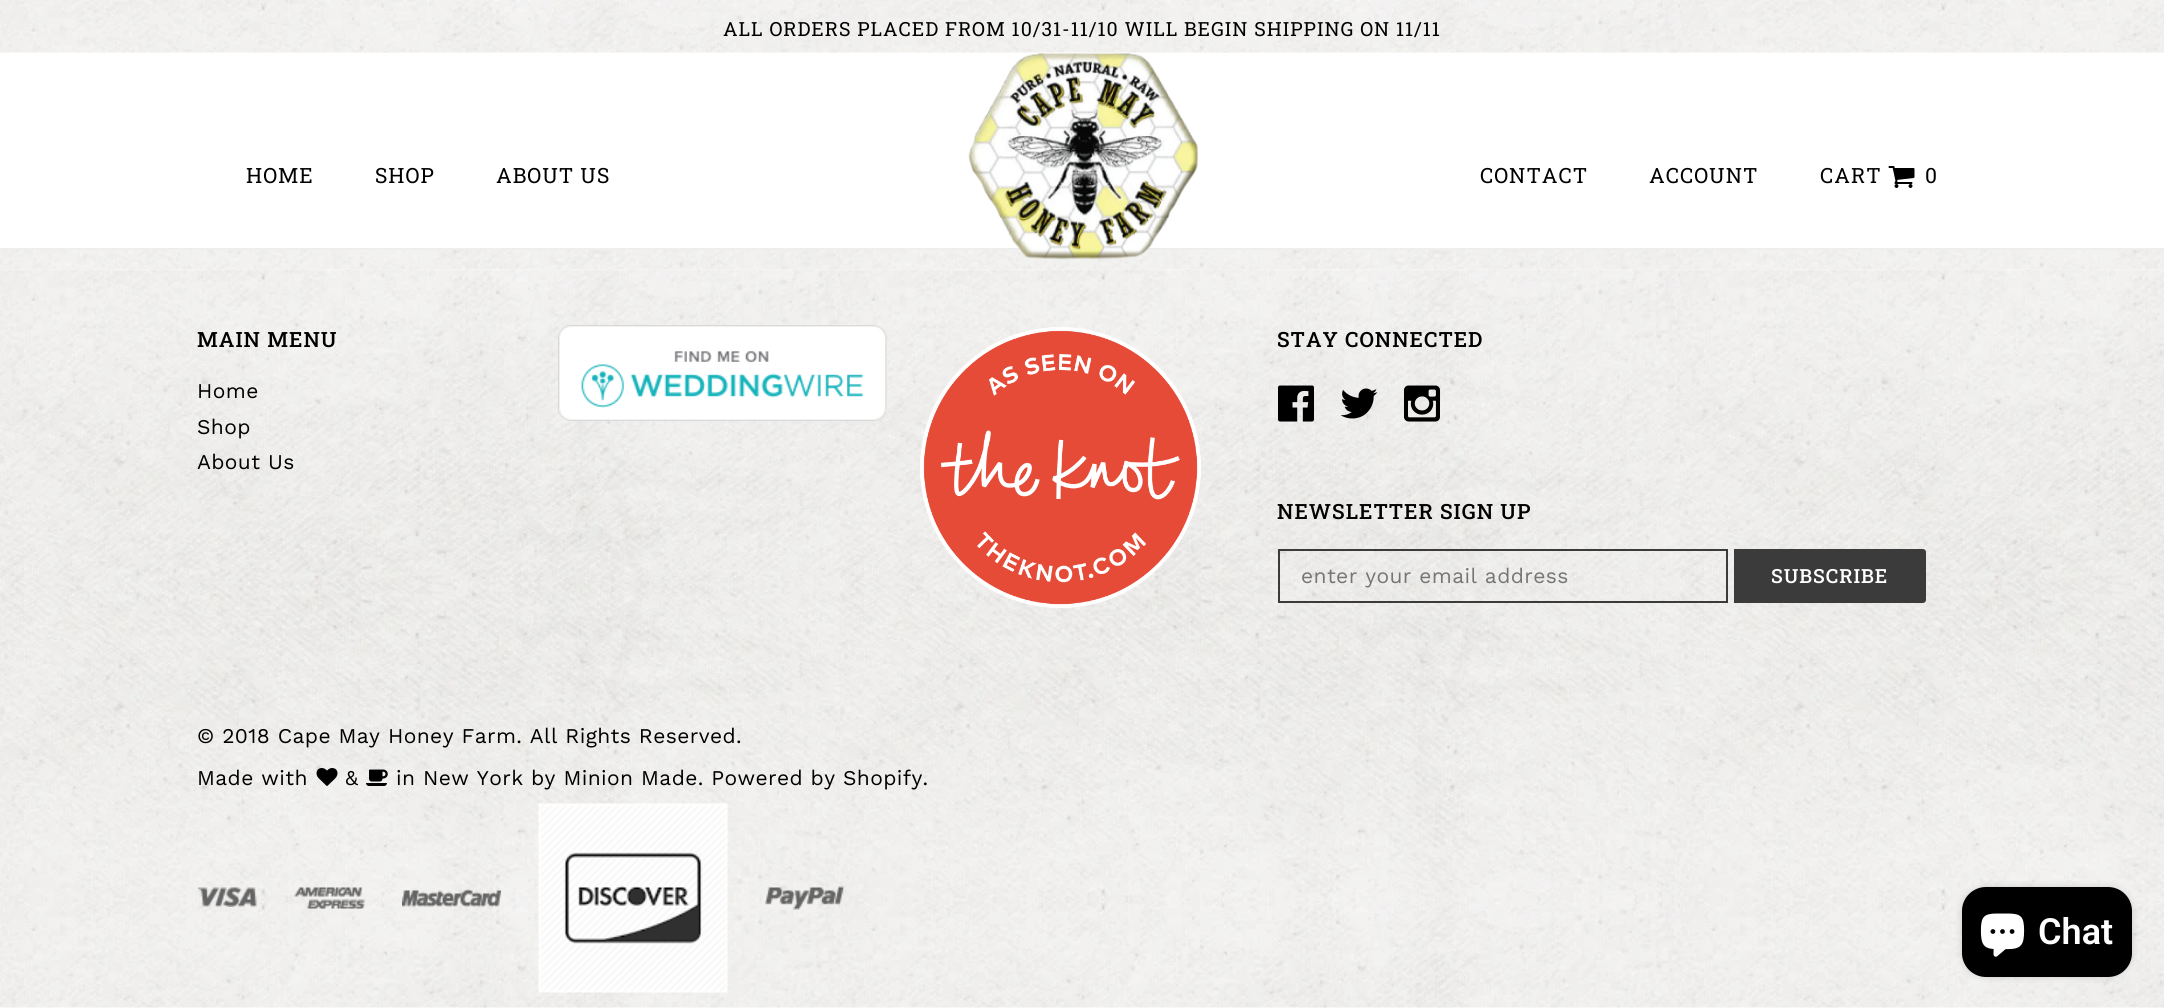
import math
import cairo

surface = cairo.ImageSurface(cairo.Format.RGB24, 2164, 1008)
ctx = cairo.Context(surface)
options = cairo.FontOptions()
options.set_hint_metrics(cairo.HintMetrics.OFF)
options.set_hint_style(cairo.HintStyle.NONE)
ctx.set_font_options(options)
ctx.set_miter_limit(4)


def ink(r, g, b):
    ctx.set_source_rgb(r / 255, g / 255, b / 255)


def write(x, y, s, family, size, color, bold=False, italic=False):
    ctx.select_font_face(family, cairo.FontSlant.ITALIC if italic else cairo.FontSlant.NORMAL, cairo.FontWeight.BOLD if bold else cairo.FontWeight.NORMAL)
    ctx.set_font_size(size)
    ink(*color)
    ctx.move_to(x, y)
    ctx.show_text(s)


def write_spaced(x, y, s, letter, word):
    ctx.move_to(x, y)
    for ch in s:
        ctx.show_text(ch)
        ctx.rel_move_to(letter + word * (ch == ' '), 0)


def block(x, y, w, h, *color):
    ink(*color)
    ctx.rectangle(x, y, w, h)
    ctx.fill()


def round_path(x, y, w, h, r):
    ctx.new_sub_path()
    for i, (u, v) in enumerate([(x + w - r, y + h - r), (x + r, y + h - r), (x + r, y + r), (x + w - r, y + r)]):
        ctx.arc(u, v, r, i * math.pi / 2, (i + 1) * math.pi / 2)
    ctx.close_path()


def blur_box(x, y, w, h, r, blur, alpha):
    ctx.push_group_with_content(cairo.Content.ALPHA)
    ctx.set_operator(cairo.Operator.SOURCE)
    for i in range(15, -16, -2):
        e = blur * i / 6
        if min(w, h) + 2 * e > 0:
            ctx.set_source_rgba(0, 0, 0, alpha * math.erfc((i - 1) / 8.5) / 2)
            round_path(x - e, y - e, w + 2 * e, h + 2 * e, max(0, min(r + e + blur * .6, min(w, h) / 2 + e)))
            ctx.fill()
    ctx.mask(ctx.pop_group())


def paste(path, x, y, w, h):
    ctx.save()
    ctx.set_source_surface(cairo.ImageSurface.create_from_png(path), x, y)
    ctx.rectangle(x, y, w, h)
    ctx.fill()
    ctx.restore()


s1 = dict(family="Roboto SemiBold", size=36, color=(255, 255, 255))

ink(255, 255, 255)
ctx.paint()
block(0, 248, 2164, 2, 238, 238, 238)
paste("pic1.png", 0, 0, 2164, 53)
ctx.select_font_face("Roboto Slab")
ctx.set_font_size(19.5)
ink(0, 0, 0)
write_spaced(723, 36, "ALL ORDERS PLACED FROM 10/31-11/10 WILL BEGIN SHIPPING ON 11/11", 0.98, 0)
paste("pic4.png", 0, 250, 2164, 20)
paste("pic2.png", 968, 53, 231, 207)
ctx.set_font_size(21)
write_spaced(246, 183, "HOME", 1, 0)
write_spaced(375, 183, "SHOP", 1, 0)
write_spaced(496, 183, "ABOUT US", 1, 0)
write_spaced(1480, 183, "CONTACT", 1, 0)
write_spaced(1649, 183, "ACCOUNT", 1, 0)
write_spaced(1820, 183, "CART", 1, 0)
paste("pic3.png", 1888, 166, 27, 22)
write_spaced(1925, 183, "0", 1, 0)
paste("pic5.png", 0, 269, 2164, 739)
ctx.select_font_face("Roboto Slab Medium")
write_spaced(197, 347, "MAIN MENU", 1, 0)
ctx.select_font_face("Work Sans")
write_spaced(197, 398, "Home", 0.4, 0)
write_spaced(197, 434, "Shop", 0.4, 0)
write_spaced(197, 469, "About Us", 0.4, 0)
paste("pic6.png", 558, 325, 329, 96)
paste("pic7.png", 920, 327, 281, 281)
ctx.select_font_face("Roboto Slab Medium")
write_spaced(1277, 347, "STAY CONNECTED", 1, 0)
paste("pic8.png", 1278, 385, 36, 37)
paste("pic9.png", 1340, 388, 38, 31)
paste("pic10.png", 1404, 385, 36, 37)
write_spaced(1277, 519, "NEWSLETTER SIGN UP", 1, 0)
ctx.rectangle(1279, 550, 448, 52)
ink(59, 59, 59)
ctx.stroke()
ctx.select_font_face("Work Sans")
ink(117, 117, 117)
write_spaced(1301, 583, "enter your email address", 0.4, 0)
ink(59, 59, 59)
ctx.new_path()
ctx.move_to(1734, 549)
ctx.line_to(1923, 549)
ctx.curve_to(1924.5, 549, 1926, 550.5, 1926, 552)
ctx.line_to(1926, 600)
ctx.curve_to(1926, 601.5, 1924.5, 603, 1923, 603)
ctx.line_to(1734, 603)
ctx.close_path()
ctx.fill()
ctx.select_font_face("Roboto Slab Medium")
ctx.set_font_size(19.5)
ink(255, 255, 255)
write_spaced(1771, 583, "SUBSCRIBE", 0.98, 0)
ctx.select_font_face("Work Sans")
ctx.set_font_size(21)
ink(0, 0, 0)
write_spaced(197, 743, "© 2018 Cape May Honey Farm. All Rights Reserved.", 0.4, 0)
write_spaced(197, 785, "Made with", 0.4, 0)
paste("pic11.png", 316, 768, 22, 18)
write_spaced(345, 785, "&", 0.4, 0)
paste("pic12.png", 366, 769, 22, 17)
write_spaced(396, 785, "in New York by Minion Made. Powered by Shopify.", 0.4, 0)
paste("pic13.png", 198, 887, 59, 20)
paste("pic14.png", 294, 887, 71, 22)
paste("pic15.png", 402, 889, 99, 18)
paste("pic16.png", 538, 803, 190, 190)
paste("pic17.png", 765, 886, 80, 24)
ink(0, 0, 0)
blur_box(1962, 887, 170, 90, 24, 4, 0.15)
ink(0, 0, 0)
round_path(1962, 887, 170, 90, 24)
ctx.fill()
paste("pic18.png", 1980, 913, 45, 44)
write(2038, 944, "Chat", **s1)
surface.write_to_png("screenshot.png")
